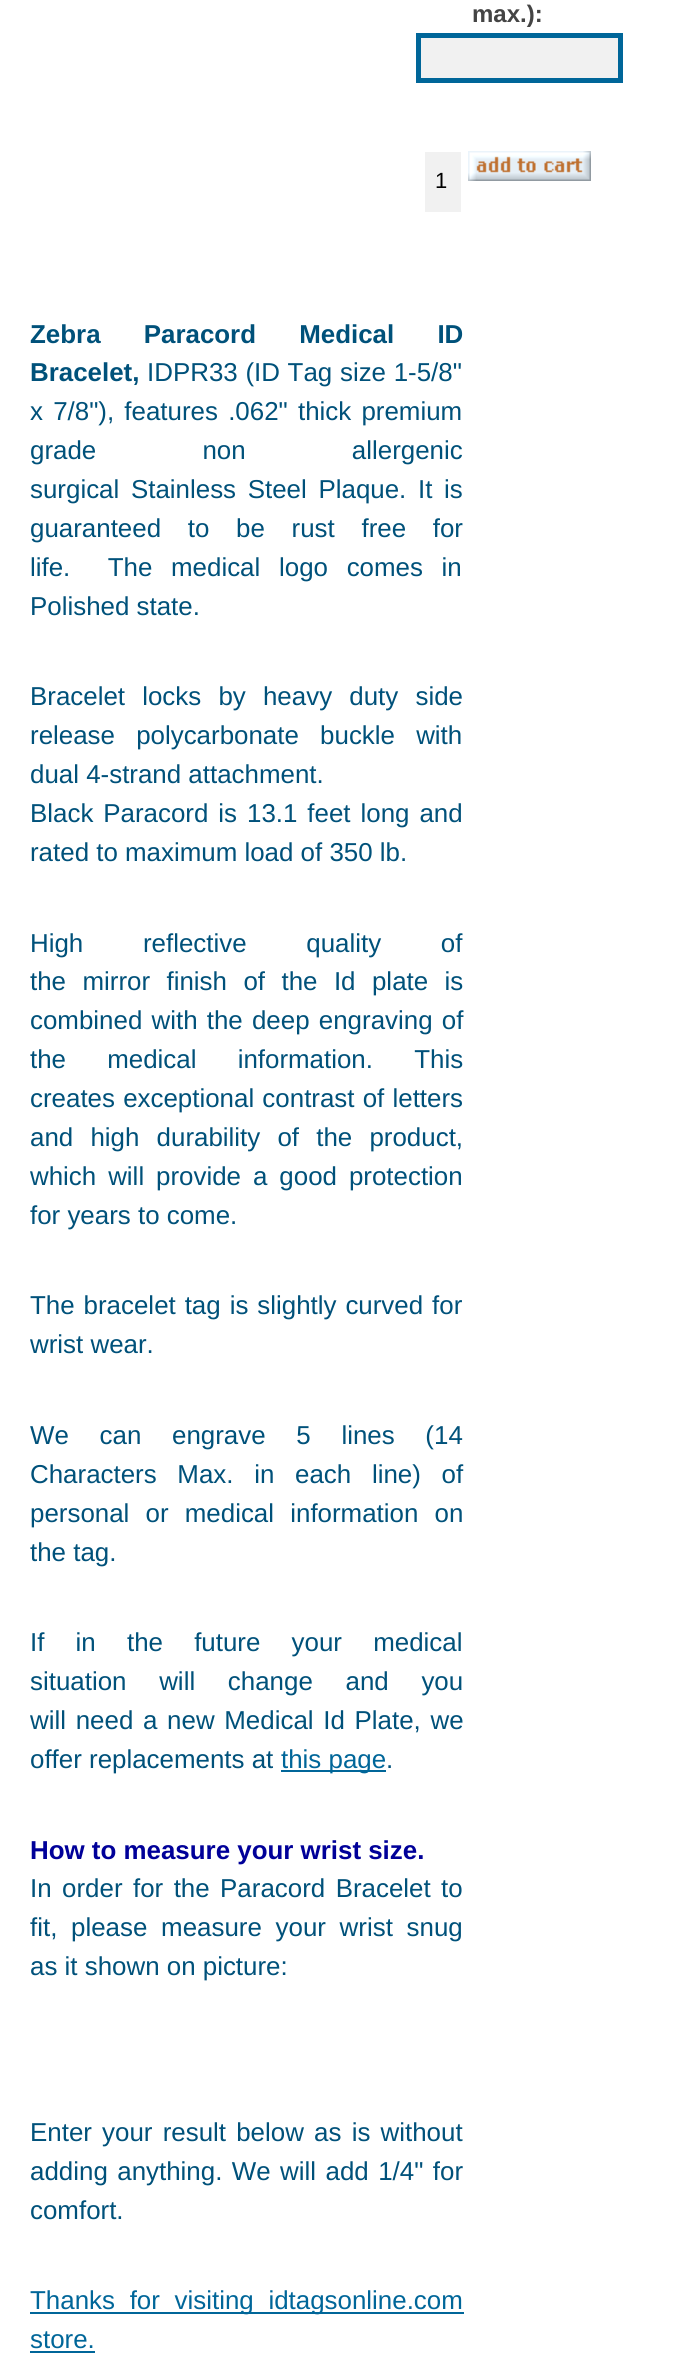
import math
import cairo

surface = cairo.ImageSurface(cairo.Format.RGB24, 690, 2373)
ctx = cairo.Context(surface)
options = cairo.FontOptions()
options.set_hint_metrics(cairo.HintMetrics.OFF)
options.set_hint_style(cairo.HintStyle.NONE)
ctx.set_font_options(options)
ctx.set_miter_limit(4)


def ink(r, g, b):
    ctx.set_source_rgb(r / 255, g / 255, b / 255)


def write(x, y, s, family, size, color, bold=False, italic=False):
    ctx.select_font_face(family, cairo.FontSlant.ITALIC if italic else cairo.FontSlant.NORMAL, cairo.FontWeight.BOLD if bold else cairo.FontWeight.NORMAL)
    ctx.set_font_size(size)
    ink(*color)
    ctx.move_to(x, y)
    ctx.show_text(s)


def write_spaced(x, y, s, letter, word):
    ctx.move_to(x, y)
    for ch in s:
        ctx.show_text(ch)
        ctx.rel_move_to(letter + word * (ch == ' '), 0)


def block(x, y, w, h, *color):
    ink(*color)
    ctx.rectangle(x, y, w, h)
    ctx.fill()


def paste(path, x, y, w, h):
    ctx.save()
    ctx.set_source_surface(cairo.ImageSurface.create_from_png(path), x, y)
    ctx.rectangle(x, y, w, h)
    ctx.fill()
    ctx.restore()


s1 = dict(family="Liberation Sans", size=24, color=(68, 68, 68), bold=True)
s2 = dict(family="Liberation Sans", size=22, color=(0, 0, 0))
s3 = dict(family="Liberation Sans", size=25.9, color=(0, 81, 122), bold=True)
s4 = dict(family="Liberation Sans", size=25.9, color=(0, 81, 122))
s5 = dict(family="Liberation Sans", size=25.9, color=(0, 102, 153))
s6 = dict(family="Liberation Sans", size=25.9, color=(0, 0, 153), bold=True)

ink(255, 255, 255)
ctx.paint()
write(472, 22, "max.):", **s1)
ink(241, 241, 241)
ctx.rectangle(418.5, 35.5, 202, 45)
ctx.fill_preserve()
ink(0, 102, 153)
ctx.set_line_width(5)
ctx.stroke()
block(425, 152, 36, 60, 241, 241, 241)
write(435, 188, "1", **s2)
paste("pic1.png", 468, 151, 123, 30)
ctx.select_font_face("Liberation Sans", cairo.FontSlant.NORMAL, cairo.FontWeight.BOLD)
ctx.set_font_size(25.9)
ink(0, 81, 122)
write_spaced(30, 343, "Zebra Paracord Medical ID", 0, 36)
write(30, 381, "Bracelet,", **s3)
ctx.select_font_face("Liberation Sans")
write_spaced(147, 381, "IDPR33 (ID Tag size 1-5/8\"", 0, 0.5)
write_spaced(30, 420, "x 7/8\"), features .062\" thick premium", 0, 3)
write_spaced(30, 459, "grade non allergenic", 0, 99)
write_spaced(30, 498, "surgical Stainless Steel Plaque. It is", 0, 4.5)
write_spaced(30, 537, "guaranteed to be rust free for", 0, 19.5)
write_spaced(30, 576, "life.  The medical logo comes in", 0, 11.5)
write(30, 615, "Polished state.", **s4)
write_spaced(30, 705, "Bracelet locks by heavy duty side", 0, 10)
write_spaced(30, 744, "release polycarbonate buckle with", 0, 14)
write(30, 783, "dual 4-strand attachment.", **s4)
write_spaced(30, 822, "Black Paracord is 13.1 feet long and", 0, 2.75)
write(30, 861, "rated to maximum load of 350 lb.", **s4)
write_spaced(30, 952, "High reflective quality of", 0, 52.5)
write_spaced(30, 990, "the mirror finish of the Id plate is", 0, 9.25)
write_spaced(30, 1029, "combined with the deep engraving of", 0, 2)
write_spaced(30, 1068, "the medical information. This", 0, 34)
write_spaced(30, 1107, "creates exceptional contrast of letters", 0, 1)
write_spaced(30, 1146, "and high durability of the product,", 0, 10)
write_spaced(30, 1185, "which will provide a good protection", 0, 4.75)
write(30, 1224, "for years to come.", **s4)
write_spaced(30, 1314, "The bracelet tag is slightly curved for", 0, 1.75)
write(30, 1353, "wrist wear.", **s4)
write_spaced(30, 1444, "We can engrave 5 lines (14", 0, 23.5)
write_spaced(30, 1483, "Characters Max. in each line) of", 0, 13.5)
write_spaced(30, 1522, "personal or medical information on", 0, 9)
write(30, 1561, "the tag.", **s4)
write_spaced(30, 1651, "If in the future your medical", 0, 24)
write_spaced(30, 1690, "situation will change and you", 0, 25.5)
write_spaced(30, 1729, "will need a new Medical Id Plate, we", 0, 2.5)
write(30, 1768, "offer replacements at", **s4)
block(281, 1770, 105, 2, 0, 102, 153)
write(281, 1768, "this page", **s5)
write(386, 1768, ".", **s4)
write(30, 1859, "How to measure your wrist size.", **s6)
ctx.select_font_face("Liberation Sans")
ink(0, 81, 122)
write_spaced(30, 1897, "In order for the Paracord Bracelet to", 0, 3.25)
write_spaced(30, 1936, "fit, please measure your wrist snug", 0, 6.5)
write(30, 1975, "as it shown on picture:", **s4)
write_spaced(30, 2141, "Enter your result below as is without", 0, 3)
write_spaced(30, 2180, "adding anything. We will add 1/4\" for", 0, 2.25)
write(30, 2219, "comfort.", **s4)
block(30, 2312, 434, 2, 0, 102, 153)
write_spaced(30, 2309, "Thanks for visiting idtagsonline.com", 0, 7.5)
write(30, 2348, "store.", **s5)
block(30, 2351, 65, 2, 0, 102, 153)
surface.write_to_png("screenshot.png")
